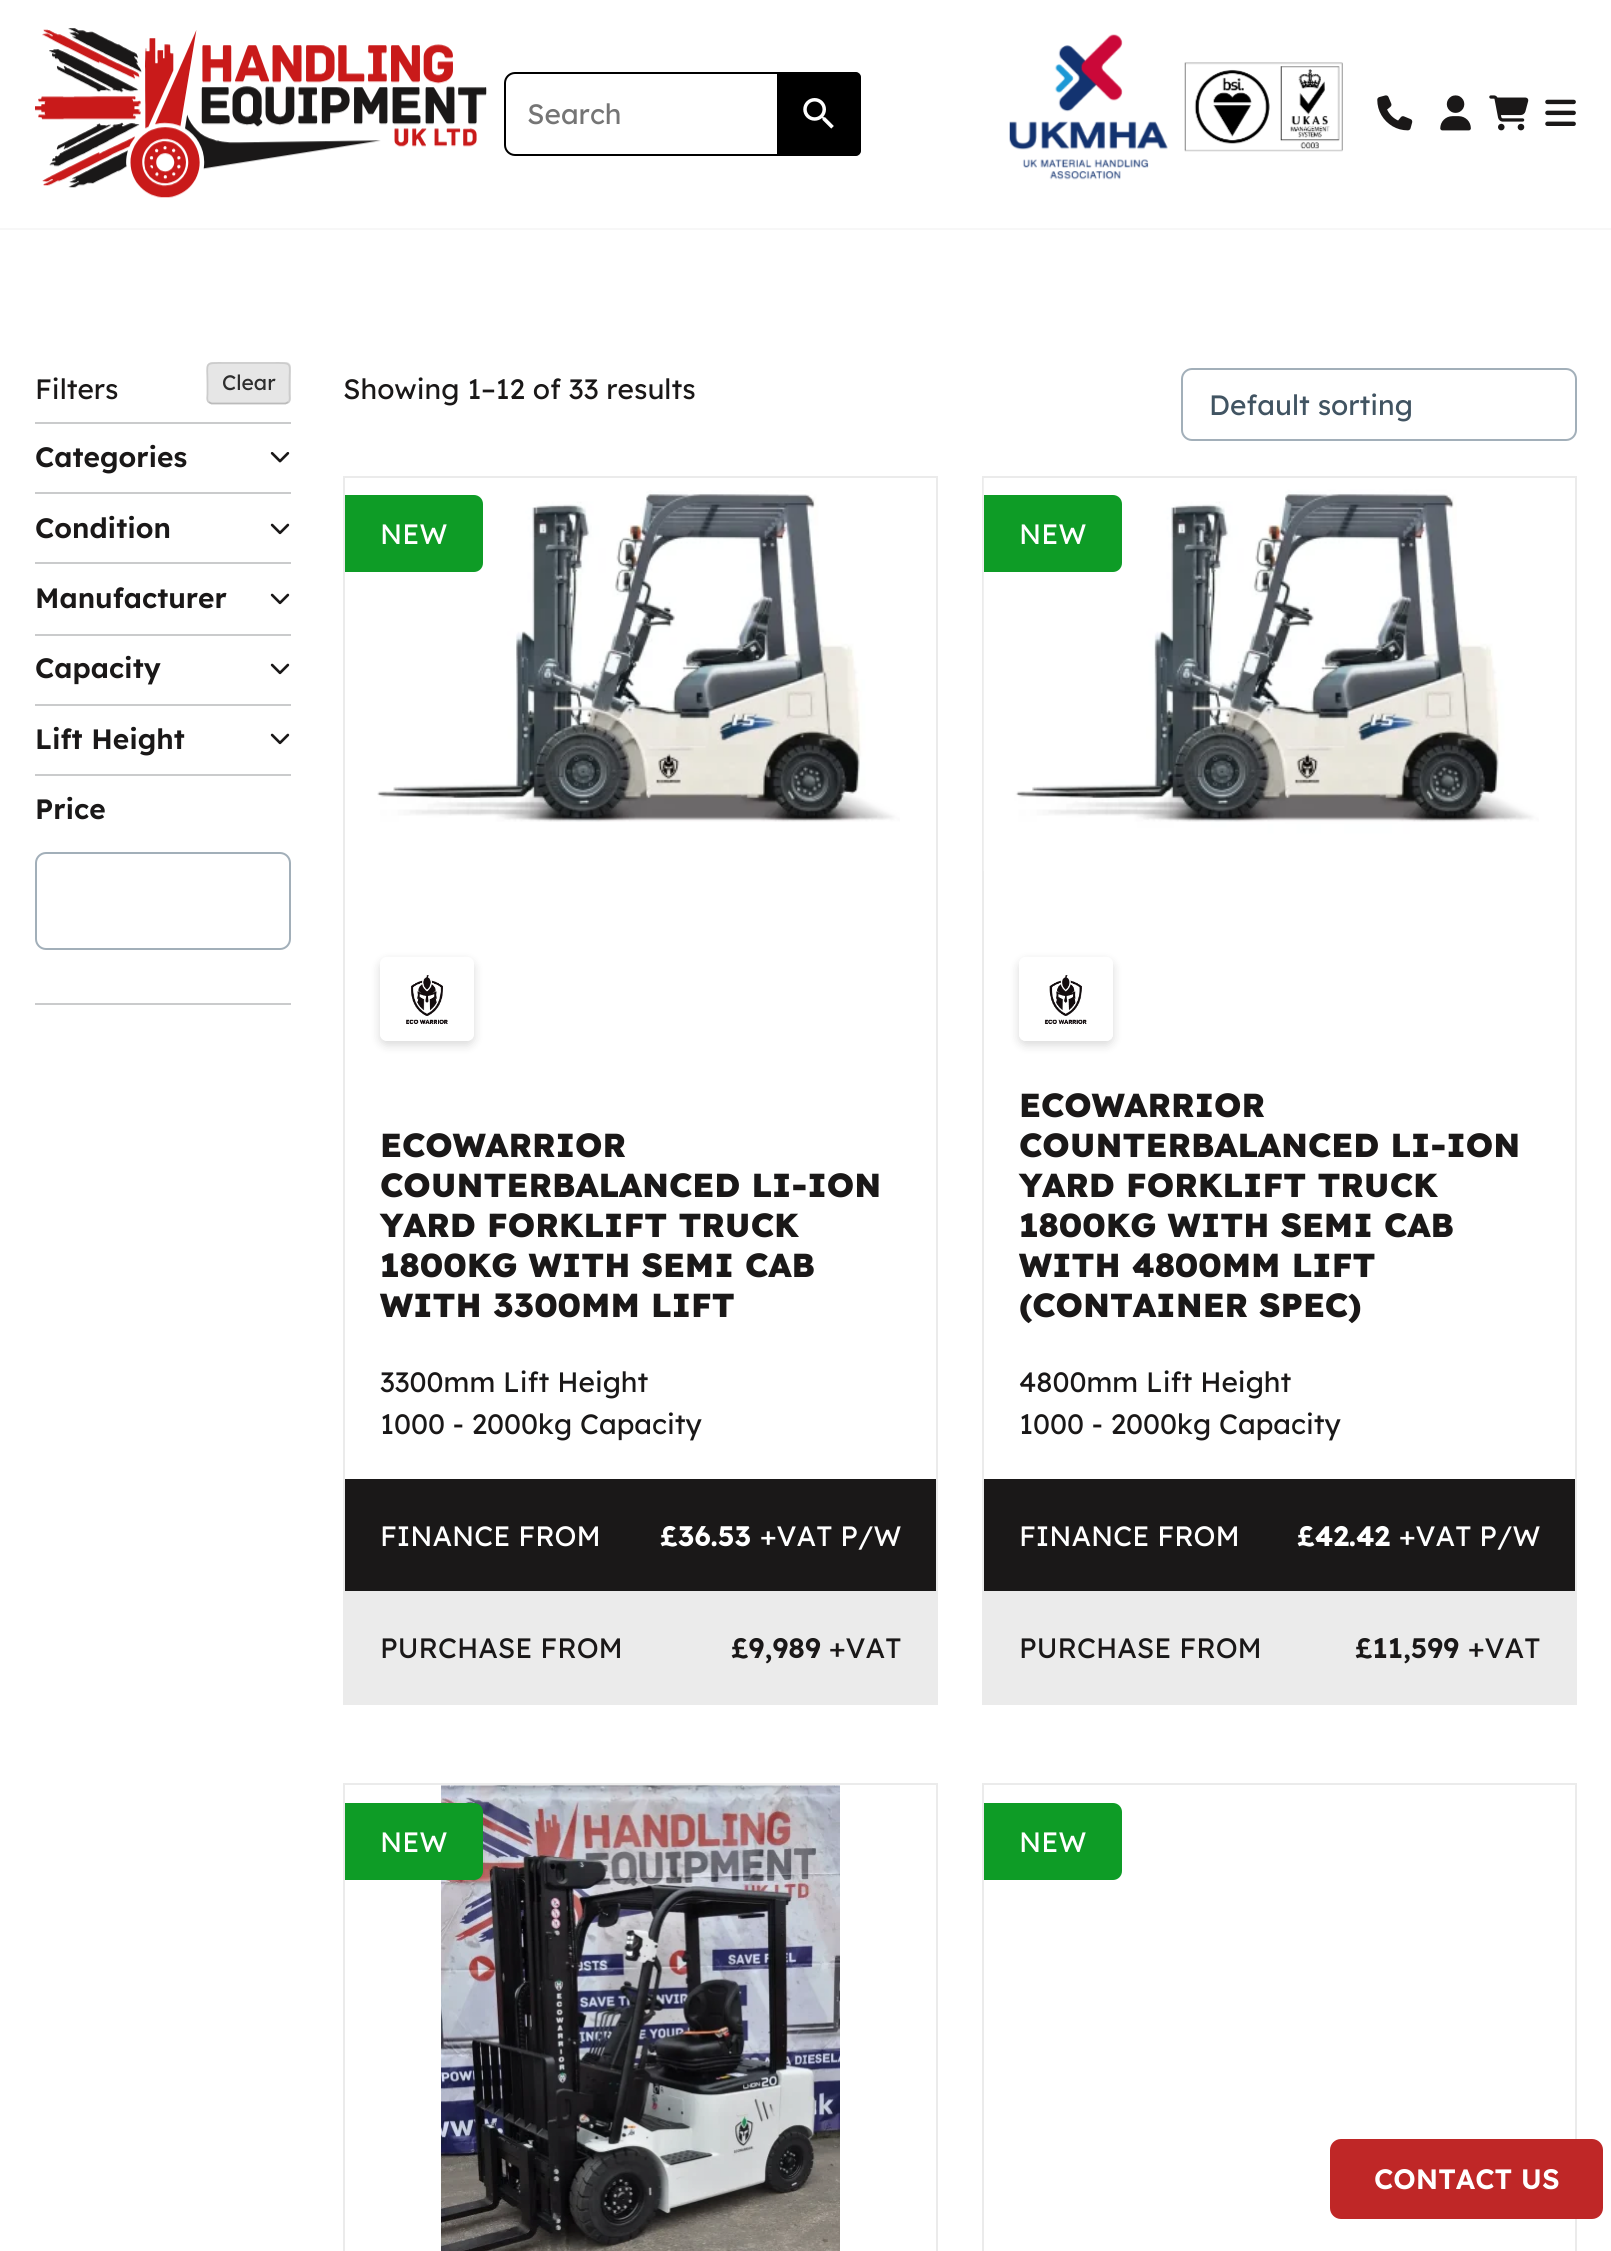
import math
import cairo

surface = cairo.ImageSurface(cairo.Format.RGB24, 1611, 2251)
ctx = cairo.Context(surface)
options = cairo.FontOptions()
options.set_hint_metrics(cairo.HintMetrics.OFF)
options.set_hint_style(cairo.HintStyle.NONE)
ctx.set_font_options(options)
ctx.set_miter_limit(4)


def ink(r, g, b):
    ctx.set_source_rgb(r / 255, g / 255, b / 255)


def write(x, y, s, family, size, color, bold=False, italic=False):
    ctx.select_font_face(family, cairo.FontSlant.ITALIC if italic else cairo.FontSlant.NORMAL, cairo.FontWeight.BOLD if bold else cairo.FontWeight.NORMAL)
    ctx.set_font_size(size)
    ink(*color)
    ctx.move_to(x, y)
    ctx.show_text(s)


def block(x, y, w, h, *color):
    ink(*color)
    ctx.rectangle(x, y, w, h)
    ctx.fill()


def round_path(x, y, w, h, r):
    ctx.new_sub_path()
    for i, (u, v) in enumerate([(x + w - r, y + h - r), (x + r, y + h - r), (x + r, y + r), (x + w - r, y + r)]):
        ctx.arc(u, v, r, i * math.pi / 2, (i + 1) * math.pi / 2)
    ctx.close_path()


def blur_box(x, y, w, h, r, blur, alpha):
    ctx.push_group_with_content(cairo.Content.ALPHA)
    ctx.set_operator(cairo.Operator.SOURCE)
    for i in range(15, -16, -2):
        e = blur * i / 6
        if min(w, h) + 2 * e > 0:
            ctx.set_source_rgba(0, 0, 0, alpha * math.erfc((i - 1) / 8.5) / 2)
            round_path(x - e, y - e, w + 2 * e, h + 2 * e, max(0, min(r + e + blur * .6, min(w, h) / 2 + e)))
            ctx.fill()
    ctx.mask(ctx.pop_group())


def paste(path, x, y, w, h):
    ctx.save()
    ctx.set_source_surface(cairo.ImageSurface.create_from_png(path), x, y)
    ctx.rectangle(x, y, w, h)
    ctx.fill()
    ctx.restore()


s1 = dict(family="Lexend", size=28, color=(117, 117, 117))
s2 = dict(family="Lexend", size=21, color=(46, 46, 46))
s3 = dict(family="Lexend SemiBold", size=28, color=(26, 24, 24))
s4 = dict(family="Lexend", size=28, color=(26, 24, 24))
s5 = dict(family="Lexend", size=28, color=(65, 84, 98))
s6 = dict(family="Lexend", size=28, color=(255, 255, 255))
s7 = dict(family="Lexend ExtraBold", size=33.25, color=(26, 24, 24))
s8 = dict(family="Lexend", size=28, color=(255, 255, 255), bold=True)
s9 = dict(family="Lexend SemiBold", size=28, color=(255, 255, 255))

ink(255, 255, 255)
ctx.paint()
block(0, 228, 1611, 2, 247, 247, 247)
paste("pic1.png", 35, 28, 452, 170)
ink(0, 0, 0)
ctx.new_path()
ctx.move_to(778, 73)
ctx.line_to(856, 73)
ctx.curve_to(858, 73, 860, 75, 860, 77)
ctx.line_to(860, 151)
ctx.curve_to(860, 153, 858, 155, 856, 155)
ctx.line_to(778, 155)
ctx.close_path()
ctx.fill_preserve()
ctx.stroke()
ink(255, 255, 255)
ctx.new_path()
ctx.move_to(515, 73)
ctx.line_to(778, 73)
ctx.line_to(778, 155)
ctx.line_to(515, 155)
ctx.curve_to(509.5, 155, 505, 150.5, 505, 145)
ctx.line_to(505, 83)
ctx.curve_to(505, 77.5, 509.5, 73, 515, 73)
ctx.close_path()
ctx.fill_preserve()
ink(0, 0, 0)
ctx.stroke()
write(527, 124, "Search", **s1)
paste("pic2.png", 803, 98, 31, 31)
paste("pic3.png", 1009, 34, 159, 146)
paste("pic4.png", 1184, 62, 159, 90)
paste("pic5.png", 1377, 95, 36, 36)
paste("pic6.png", 1440, 95, 31, 36)
paste("pic7.png", 1489, 95, 40, 36)
paste("pic8.png", 1545, 99, 31, 27)
block(35, 422, 256, 2, 202, 203, 204)
ink(230, 230, 230)
round_path(207, 362, 84, 42, 5)
ctx.fill()
ctx.new_path()
ctx.move_to(288.5, 402)
ctx.line_to(285.5, 403.5)
ctx.line_to(211.5, 403.5)
ctx.line_to(208.5, 402)
ink(187, 187, 187)
ctx.set_line_width(1.8)
ctx.stroke()
ctx.new_path()
ctx.move_to(208.5, 402)
ctx.curve_to(206.5, 400, 207.5, 396, 207.5, 394)
ctx.line_to(207.5, 383)
ctx.curve_to(207.5, 362, 203.5, 363, 224, 363)
ctx.line_to(273, 363)
ctx.curve_to(293.5, 363, 289.5, 362, 289.5, 383)
ctx.line_to(289.5, 394)
ctx.curve_to(289.5, 396, 290.5, 400, 288.5, 402)
ink(204, 204, 204)
ctx.stroke()
write(222, 390, "Clear", **s2)
block(35, 492, 256, 2, 202, 203, 204)
write(35, 467, "Categories", **s3)
paste("pic9.png", 270, 452, 20, 11)
block(35, 562, 256, 2, 202, 203, 204)
write(35, 538, "Condition", **s3)
paste("pic10.png", 270, 523, 20, 12)
block(35, 634, 256, 2, 202, 203, 204)
write(35, 608, "Manufacturer", **s3)
paste("pic10.png", 270, 593, 20, 12)
block(35, 704, 256, 2, 202, 203, 204)
write(35, 678, "Capacity", **s3)
paste("pic10.png", 270, 663, 20, 12)
block(35, 774, 256, 2, 202, 203, 204)
write(35, 749, "Lift Height", **s3)
paste("pic10.png", 270, 733, 20, 12)
block(35, 1003, 256, 2, 202, 203, 204)
write(35, 819, "Price", **s3)
round_path(36, 853, 254, 96, 10)
ink(162, 175, 185)
ctx.set_line_width(2)
ctx.stroke()
write(35, 399, "Filters", **s4)
write(343, 399, "Showing 1–12 of 33 results", **s4)
round_path(1182, 369, 394, 71, 10)
ink(162, 175, 185)
ctx.stroke()
write(1209, 415, "Default sorting", **s5)
ctx.rectangle(344, 477, 593, 1227)
ink(235, 235, 235)
ctx.stroke()
paste("pic11.png", 377, 490, 523, 332)
ctx.save()
ctx.set_fill_rule(cairo.FillRule.EVEN_ODD)
ctx.new_path()
ctx.move_to(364, 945)
ctx.line_to(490, 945)
ctx.line_to(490, 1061)
ctx.line_to(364, 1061)
ctx.close_path()
ctx.move_to(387, 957)
ctx.line_to(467, 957)
ctx.curve_to(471, 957, 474, 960, 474, 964)
ctx.line_to(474, 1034)
ctx.curve_to(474, 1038, 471, 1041, 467, 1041)
ctx.line_to(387, 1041)
ctx.curve_to(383, 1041, 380, 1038, 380, 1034)
ctx.line_to(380, 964)
ctx.curve_to(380, 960, 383, 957, 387, 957)
ctx.close_path()
ctx.clip()
ink(0, 0, 0)
blur_box(380, 961, 94, 84, 7, 5, 0.15)
ctx.restore()
paste("pic12.png", 406, 975, 42, 49)
ink(14, 156, 38)
ctx.new_path()
ctx.move_to(345, 495)
ctx.line_to(474, 495)
ctx.curve_to(479, 495, 483, 499, 483, 504)
ctx.line_to(483, 563)
ctx.curve_to(483, 568, 479, 572, 474, 572)
ctx.line_to(345, 572)
ctx.close_path()
ctx.fill()
write(380, 544, "NEW", **s6)
write(380, 1157, "ECOWARRIOR", **s7)
write(380, 1197, "COUNTERBALANCED LI-ION", **s7)
write(380, 1237, "YARD FORKLIFT TRUCK", **s7)
write(380, 1277, "1800KG WITH SEMI CAB", **s7)
write(380, 1317, "WITH 3300MM LIFT", **s7)
write(380, 1392, "3300mm Lift Height", **s4)
write(380, 1434, "1000 - 2000kg Capacity", **s4)
block(345, 1479, 591, 112, 26, 24, 24)
write(380, 1546, "FINANCE FROM", **s6)
write(660, 1546, "£36.53", **s8)
write(760, 1546, "+VAT P/W", **s6)
block(345, 1591, 591, 112, 235, 235, 235)
write(380, 1658, "PURCHASE FROM", **s4)
write(731, 1658, "£9,989", **s3)
write(829, 1658, "+VAT", **s4)
ctx.rectangle(983, 477, 593, 1227)
ink(235, 235, 235)
ctx.stroke()
paste("pic13.png", 983, 478, 556, 393)
ctx.save()
ctx.set_fill_rule(cairo.FillRule.EVEN_ODD)
ctx.new_path()
ctx.move_to(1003, 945)
ctx.line_to(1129, 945)
ctx.line_to(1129, 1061)
ctx.line_to(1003, 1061)
ctx.close_path()
ctx.move_to(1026, 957)
ctx.line_to(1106, 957)
ctx.curve_to(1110, 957, 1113, 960, 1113, 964)
ctx.line_to(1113, 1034)
ctx.curve_to(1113, 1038, 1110, 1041, 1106, 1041)
ctx.line_to(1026, 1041)
ctx.curve_to(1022, 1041, 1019, 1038, 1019, 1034)
ctx.line_to(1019, 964)
ctx.curve_to(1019, 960, 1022, 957, 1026, 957)
ctx.close_path()
ctx.clip()
ink(0, 0, 0)
blur_box(1019, 961, 94, 84, 7, 5, 0.15)
ctx.restore()
ctx.set_source_rgba(1, 1, 1, 0.9)
round_path(1019, 957, 94, 84, 7)
ctx.fill()
paste("pic14.png", 1044, 975, 43, 49)
ink(14, 156, 38)
ctx.new_path()
ctx.move_to(984, 495)
ctx.line_to(1113, 495)
ctx.curve_to(1118, 495, 1122, 499, 1122, 504)
ctx.line_to(1122, 563)
ctx.curve_to(1122, 568, 1118, 572, 1113, 572)
ctx.line_to(984, 572)
ctx.close_path()
ctx.fill()
write(1019, 544, "NEW", **s6)
write(1019, 1117, "ECOWARRIOR", **s7)
write(1019, 1157, "COUNTERBALANCED LI-ION", **s7)
write(1019, 1197, "YARD FORKLIFT TRUCK", **s7)
write(1019, 1237, "1800KG WITH SEMI CAB", **s7)
write(1019, 1277, "WITH 4800MM LIFT", **s7)
write(1019, 1317, "(CONTAINER SPEC)", **s7)
write(1019, 1392, "4800mm Lift Height", **s4)
write(1019, 1434, "1000 - 2000kg Capacity", **s4)
block(984, 1479, 591, 112, 26, 24, 24)
write(1019, 1546, "FINANCE FROM", **s6)
write(1297, 1546, "£42.42", **s8)
write(1399, 1546, "+VAT P/W", **s6)
block(984, 1591, 591, 112, 235, 235, 235)
write(1019, 1658, "PURCHASE FROM", **s4)
write(1355, 1658, "£11,599", **s3)
write(1468, 1658, "+VAT", **s4)
ctx.rectangle(344, 1784, 593, 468)
ink(235, 235, 235)
ctx.stroke()
paste("pic15.png", 441, 1785, 399, 466)
ink(14, 156, 38)
ctx.new_path()
ctx.move_to(345, 1803)
ctx.line_to(474, 1803)
ctx.curve_to(479, 1803, 483, 1807, 483, 1812)
ctx.line_to(483, 1871)
ctx.curve_to(483, 1876, 479, 1880, 474, 1880)
ctx.line_to(345, 1880)
ctx.close_path()
ctx.fill()
write(380, 1852, "NEW", **s6)
ctx.rectangle(983, 1784, 593, 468)
ink(235, 235, 235)
ctx.stroke()
ink(14, 156, 38)
ctx.new_path()
ctx.move_to(984, 1803)
ctx.line_to(1113, 1803)
ctx.curve_to(1118, 1803, 1122, 1807, 1122, 1812)
ctx.line_to(1122, 1871)
ctx.curve_to(1122, 1876, 1118, 1880, 1113, 1880)
ctx.line_to(984, 1880)
ctx.close_path()
ctx.fill()
write(1019, 1852, "NEW", **s6)
ink(191, 39, 39)
round_path(1330, 2139, 273, 80, 11)
ctx.fill()
write(1374, 2189, "CONTACT US", **s9)
surface.write_to_png("screenshot.png")
